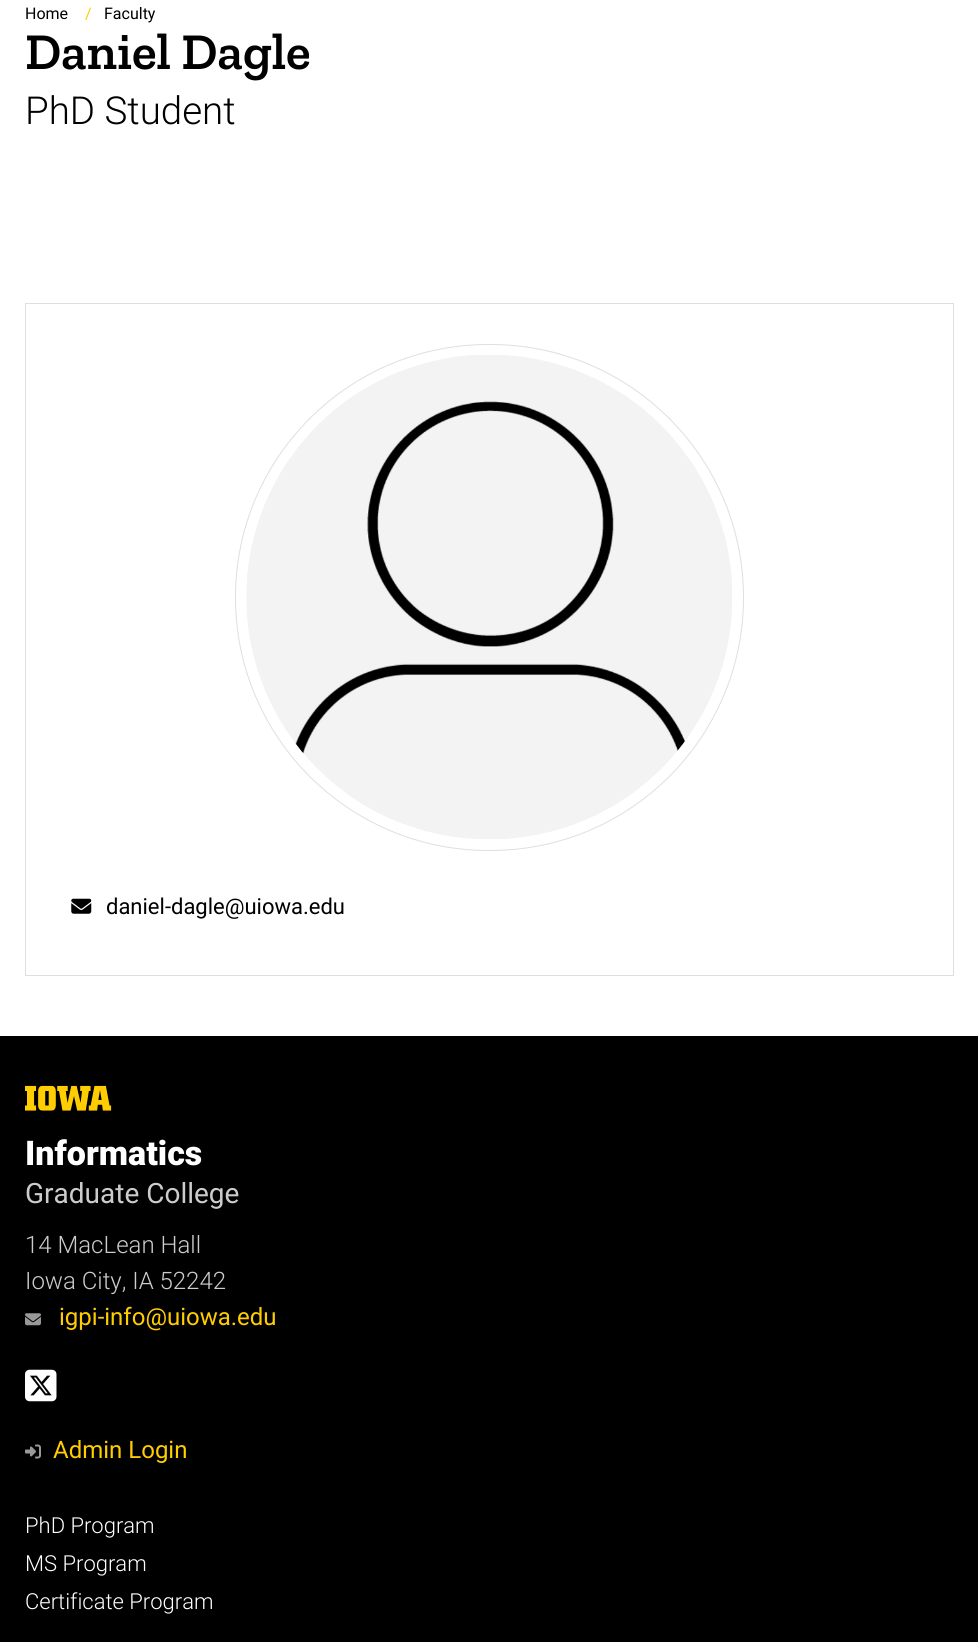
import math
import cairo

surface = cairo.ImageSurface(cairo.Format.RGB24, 978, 1642)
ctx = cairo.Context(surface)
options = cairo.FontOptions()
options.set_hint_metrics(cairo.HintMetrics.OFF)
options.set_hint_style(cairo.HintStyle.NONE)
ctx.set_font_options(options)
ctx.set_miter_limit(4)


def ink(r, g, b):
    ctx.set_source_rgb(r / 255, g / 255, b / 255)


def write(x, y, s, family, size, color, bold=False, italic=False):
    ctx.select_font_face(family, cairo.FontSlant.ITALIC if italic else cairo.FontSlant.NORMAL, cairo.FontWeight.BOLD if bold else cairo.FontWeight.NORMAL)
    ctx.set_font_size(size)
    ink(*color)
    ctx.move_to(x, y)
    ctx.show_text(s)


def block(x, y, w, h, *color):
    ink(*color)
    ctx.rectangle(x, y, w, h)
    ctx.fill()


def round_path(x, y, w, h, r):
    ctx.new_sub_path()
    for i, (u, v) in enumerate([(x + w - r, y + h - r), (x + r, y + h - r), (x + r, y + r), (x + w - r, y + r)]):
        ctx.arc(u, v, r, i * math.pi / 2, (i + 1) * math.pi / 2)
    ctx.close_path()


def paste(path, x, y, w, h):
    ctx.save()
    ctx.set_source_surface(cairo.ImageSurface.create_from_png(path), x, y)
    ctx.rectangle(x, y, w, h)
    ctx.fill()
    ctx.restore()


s1 = dict(family="Roboto", size=16, color=(0, 0, 0))
s2 = dict(family="Roboto", size=16, color=(255, 205, 0))
s3 = dict(family="Zilla Slab SemiBold", size=51.5, color=(0, 0, 0))
s4 = dict(family="Roboto Light", size=38.5, color=(0, 0, 0))
s5 = dict(family="Roboto", size=22, color=(0, 0, 0))
s6 = dict(family="Roboto Black", size=34, color=(255, 255, 255))
s7 = dict(family="Roboto", size=28, color=(204, 204, 204))
s8 = dict(family="Roboto Light", size=24, color=(204, 204, 204))
s9 = dict(family="Roboto", size=24, color=(255, 205, 0))
s10 = dict(family="Roboto Light", size=22, color=(255, 255, 255))

ink(255, 255, 255)
ctx.paint()
write(25, 19, "Home", **s1)
write(85, 19, "/", **s2)
write(104, 19, "Faculty", **s1)
write(25, 69, "Daniel Dagle", **s3)
write(25, 124, "PhD Student", **s4)
ctx.rectangle(25.5, 303.5, 928, 672)
ink(223, 223, 223)
ctx.set_line_width(1)
ctx.stroke()
round_path(235.5, 344.5, 508, 506, 253)
ctx.stroke()
paste("pic1.png", 246, 355, 486, 484)
paste("pic2.png", 71, 898, 21, 16)
write(106, 914, "daniel-dagle@uiowa.edu", **s5)
block(0, 1036, 978, 606, 0, 0, 0)
paste("pic3.png", 25, 1085, 87, 26)
write(25, 1165, "Informatics", **s6)
write(25, 1203, "Graduate College", **s7)
write(25, 1253, "14 MacLean Hall", **s8)
write(25, 1289, "Iowa City, IA 52242", **s8)
paste("pic4.png", 25, 1313, 16, 13)
write(59, 1325, "igpi-info@uiowa.edu", **s9)
paste("pic5.png", 25, 1369, 32, 33)
paste("pic6.png", 25, 1444, 16, 15)
write(53, 1458, "Admin Login", **s9)
write(25, 1533, "PhD Program", **s10)
write(25, 1571, "MS Program", **s10)
write(25, 1609, "Certificate Program", **s10)
surface.write_to_png("screenshot.png")
